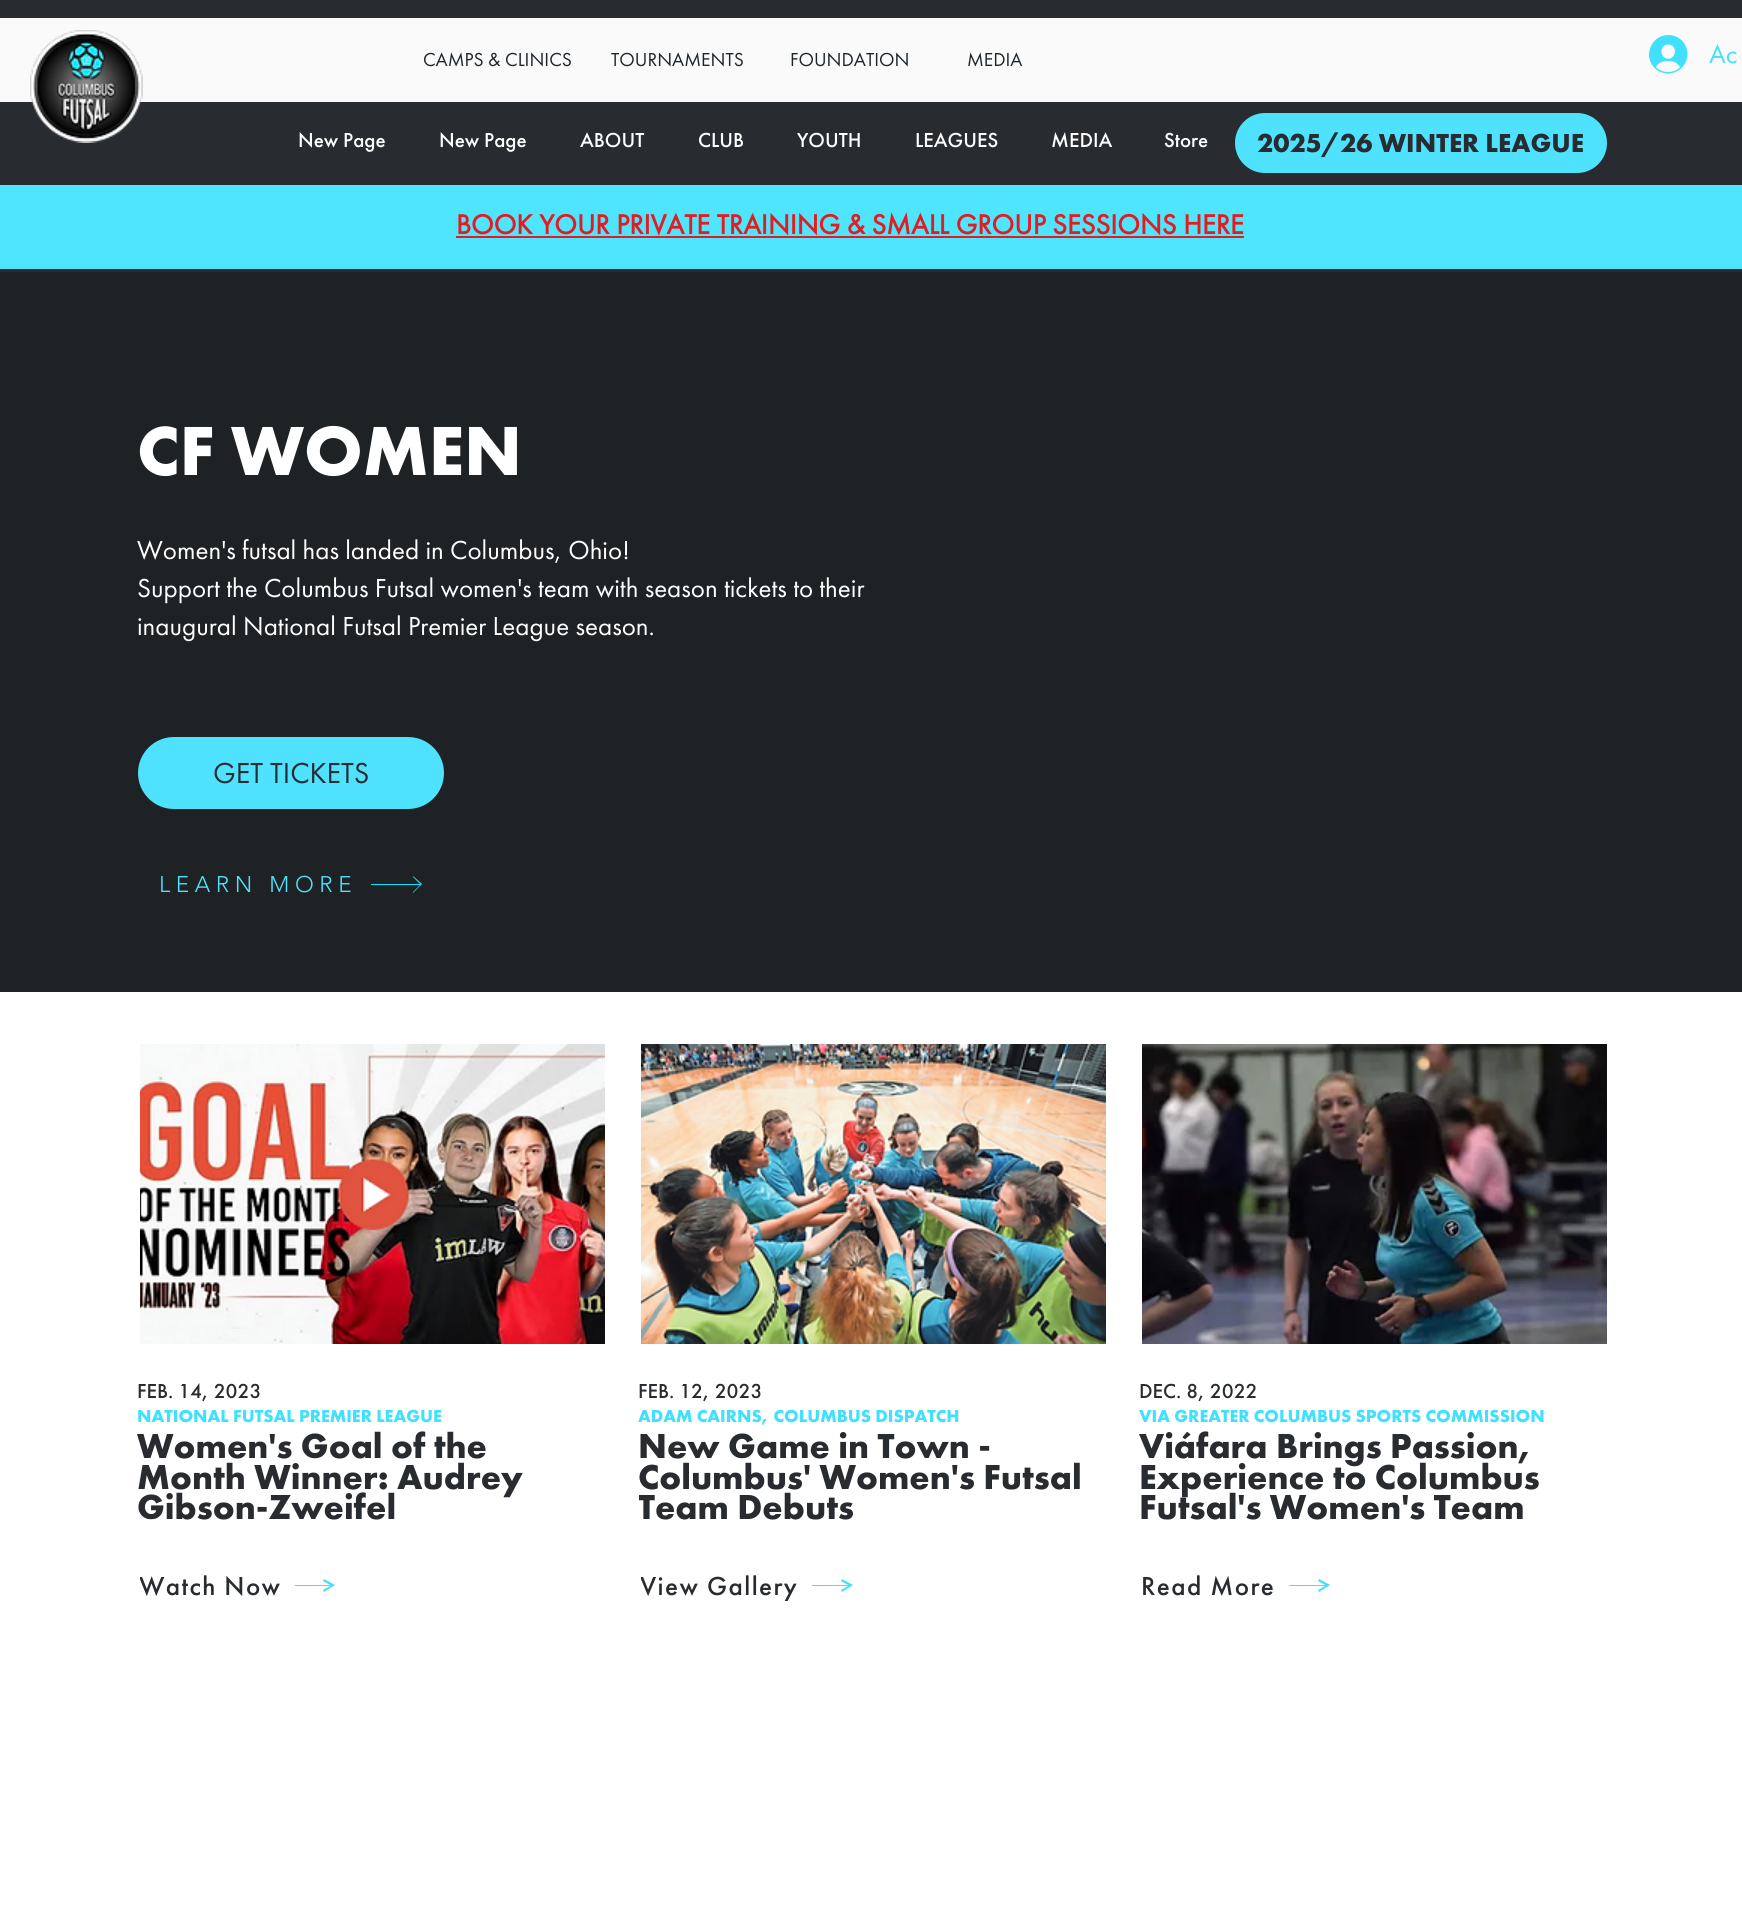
import math
import cairo

surface = cairo.ImageSurface(cairo.Format.RGB24, 1742, 1906)
ctx = cairo.Context(surface)
options = cairo.FontOptions()
options.set_hint_metrics(cairo.HintMetrics.OFF)
options.set_hint_style(cairo.HintStyle.NONE)
ctx.set_font_options(options)
ctx.set_miter_limit(4)


def ink(r, g, b):
    ctx.set_source_rgb(r / 255, g / 255, b / 255)


def write(x, y, s, family, size, color, bold=False, italic=False):
    ctx.select_font_face(family, cairo.FontSlant.ITALIC if italic else cairo.FontSlant.NORMAL, cairo.FontWeight.BOLD if bold else cairo.FontWeight.NORMAL)
    ctx.set_font_size(size)
    ink(*color)
    ctx.move_to(x, y)
    ctx.show_text(s)


def write_spaced(x, y, s, letter, word):
    ctx.move_to(x, y)
    for ch in s:
        ctx.show_text(ch)
        ctx.rel_move_to(letter + word * (ch == ' '), 0)


def block(x, y, w, h, *color):
    ink(*color)
    ctx.rectangle(x, y, w, h)
    ctx.fill()


def round_path(x, y, w, h, r):
    ctx.new_sub_path()
    for i, (u, v) in enumerate([(x + w - r, y + h - r), (x + r, y + h - r), (x + r, y + r), (x + w - r, y + r)]):
        ctx.arc(u, v, r, i * math.pi / 2, (i + 1) * math.pi / 2)
    ctx.close_path()


def paste(path, x, y, w, h):
    ctx.save()
    ctx.set_source_surface(cairo.ImageSurface.create_from_png(path), x, y)
    ctx.rectangle(x, y, w, h)
    ctx.fill()
    ctx.restore()


s1 = dict(family="Futura PT", size=19.5, color=(29, 37, 43))
s2 = dict(family="Futura PT", size=27, color=(66, 224, 255))
s3 = dict(family="Futura PT Medium", size=21, color=(255, 255, 255))
s4 = dict(family="Futura PT", size=27, color=(40, 43, 48), bold=True)
s5 = dict(family="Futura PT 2", size=28.5, color=(226, 28, 33), bold=True)
s6 = dict(family="Futura PT", size=72, color=(255, 255, 255), bold=True)
s7 = dict(family="Futura PT", size=27, color=(255, 255, 255))
s8 = dict(family="Futura PT", size=30, color=(40, 43, 48))
s9 = dict(family="Futura PT Medium", size=21, color=(40, 43, 48))
s10 = dict(family="Futura PT", size=18, color=(66, 224, 255), bold=True)
s11 = dict(family="Futura PT", size=36, color=(40, 43, 48), bold=True)

ink(255, 255, 255)
ctx.paint()
block(0, 0, 1742, 272, 40, 43, 48)
block(0, 18, 1742, 84, 250, 250, 250)
paste("pic1.png", 30, 30, 113, 113)
write(423, 66, "CAMPS & CLINICS", **s1)
write(611, 66, "TOURNAMENTS", **s1)
write(790, 66, "FOUNDATION", **s1)
write(967, 66, "MEDIA", **s1)
paste("pic2.png", 1649, 35, 39, 39)
write(1709, 63, "Ac", **s2)
write(298, 147, "New Page", **s3)
write(439, 147, "New Page", **s3)
write(580, 147, "ABOUT", **s3)
write(698, 147, "CLUB", **s3)
write(797, 147, "YOUTH", **s3)
write(915, 147, "LEAGUES", **s3)
write(1051, 147, "MEDIA", **s3)
write(1164, 147, "Store", **s3)
ink(79, 226, 255)
round_path(1235, 113, 372, 60, 30)
ctx.fill()
write(1257, 152, "2025/26 WINTER LEAGUE", **s4)
block(0, 185, 1742, 84, 79, 229, 255)
write(456, 234, "BOOK YOUR PRIVATE TRAINING & SMALL GROUP SESSIONS HERE", **s5)
block(456, 236, 788, 2, 226, 28, 33)
block(0, 272, 1742, 720, 31, 34, 36)
write(137, 475, "CF WOMEN", **s6)
write(137, 559, "Women's futsal has landed in Columbus, Ohio!", **s7)
write(137, 597, "Support the Columbus Futsal women's team with season tickets to their", **s7)
write(137, 635, "inaugural National Futsal Premier League season.", **s7)
ink(79, 226, 255)
round_path(138, 737, 306, 72, 36)
ctx.fill()
write(213, 783, "GET TICKETS", **s8)
ctx.select_font_face("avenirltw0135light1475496 Light")
ctx.set_font_size(22.5)
ink(79, 229, 255)
write_spaced(159, 892, "LEARN MORE", 5.6, 0)
ink(15, 227, 255)
ctx.new_path()
ctx.move_to(413, 876)
ctx.line_to(413, 877)
ctx.line_to(420, 884)
ctx.line_to(371, 884)
ctx.line_to(371, 885)
ctx.line_to(420, 885)
ctx.line_to(413, 892)
ctx.line_to(413, 893)
ctx.line_to(422, 884)
ctx.close_path()
ctx.fill()
paste("pic3.png", 140, 1044, 465, 300)
write(137, 1398, "FEB. 14, 2023", **s9)
write(137, 1422, "NATIONAL FUTSAL PREMIER LEAGUE", **s10)
write(137, 1458, "Women's Goal of the", **s11)
write(137, 1489, "Month Winner: Audrey", **s11)
write(137, 1519, "Gibson-Zweifel", **s11)
ctx.save()
ctx.rectangle(140, 1569, 141, 32)
ctx.clip()
ctx.select_font_face("Futura PT Medium")
ctx.set_font_size(27)
write_spaced(139, 1595, "Watch Now", 1.4, 0)
ctx.restore()
ink(66, 224, 255)
ctx.new_path()
ctx.move_to(295, 1585)
ctx.line_to(295, 1586)
ctx.line_to(330, 1586)
ctx.line_to(323, 1590)
ctx.line_to(324, 1592)
ctx.line_to(335, 1585)
ctx.line_to(324, 1579)
ctx.line_to(323, 1581)
ctx.line_to(330, 1585)
ctx.close_path()
ctx.fill()
paste("pic4.png", 641, 1044, 465, 300)
write(638, 1398, "FEB. 12, 2023", **s9)
write(638, 1422, "ADAM CAIRNS, COLUMBUS DISPATCH", **s10)
write(638, 1458, "New Game in Town -", **s11)
write(638, 1489, "Columbus' Women's Futsal", **s11)
ctx.save()
ctx.rectangle(639, 1044, 467, 578)
ctx.clip()
write(638, 1519, "Team Debuts", **s11)
ctx.restore()
ctx.save()
ctx.rectangle(641, 1569, 157, 32)
ctx.clip()
ctx.select_font_face("Futura PT Medium")
ctx.set_font_size(27)
write_spaced(640, 1595, "View Gallery", 1.4, 0)
ctx.restore()
ink(66, 224, 255)
ctx.new_path()
ctx.move_to(812, 1585)
ctx.line_to(812, 1586)
ctx.line_to(848, 1586)
ctx.line_to(841, 1590)
ctx.line_to(842, 1592)
ctx.line_to(853, 1585)
ctx.line_to(842, 1579)
ctx.line_to(841, 1581)
ctx.line_to(848, 1585)
ctx.close_path()
ctx.fill()
paste("pic5.png", 1142, 1044, 465, 300)
write(1139, 1398, "DEC. 8, 2022", **s9)
write(1139, 1422, "VIA GREATER COLUMBUS SPORTS COMMISSION", **s10)
write(1139, 1458, "Viáfara Brings Passion,", **s11)
write(1139, 1489, "Experience to Columbus", **s11)
write(1139, 1519, "Futsal's Women's Team", **s11)
ctx.select_font_face("Futura PT Medium")
ctx.set_font_size(27)
write_spaced(1141, 1595, "Read More", 1.4, 0)
ink(66, 224, 255)
ctx.new_path()
ctx.move_to(1289, 1585)
ctx.line_to(1289, 1586)
ctx.line_to(1325, 1586)
ctx.line_to(1318, 1590)
ctx.line_to(1319, 1592)
ctx.line_to(1330, 1585)
ctx.line_to(1319, 1579)
ctx.line_to(1318, 1581)
ctx.line_to(1325, 1585)
ctx.close_path()
ctx.fill()
surface.write_to_png("screenshot.png")
